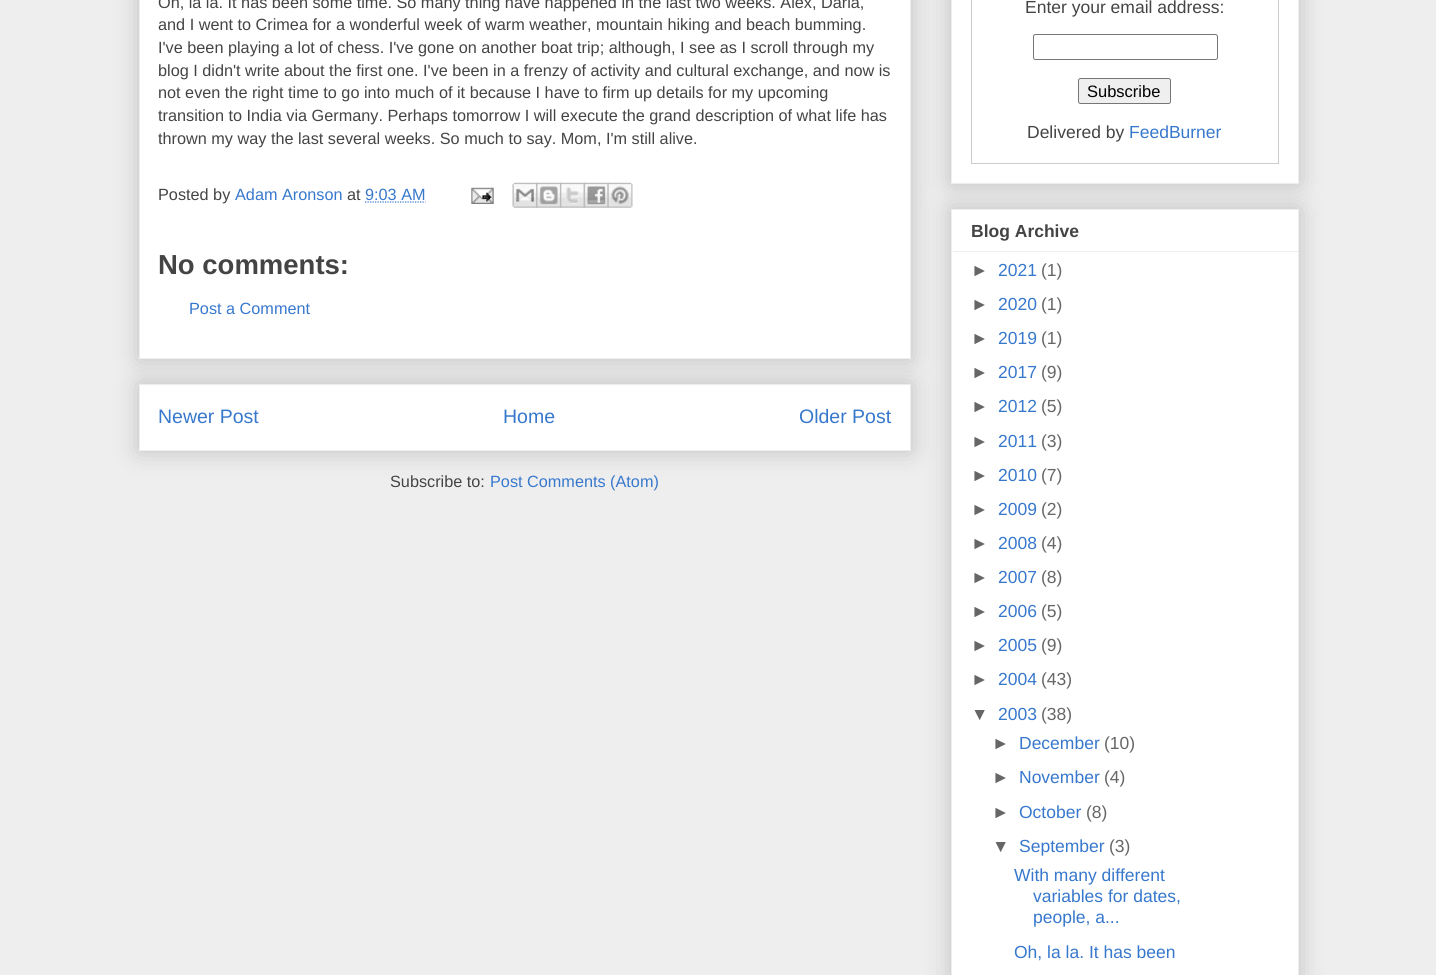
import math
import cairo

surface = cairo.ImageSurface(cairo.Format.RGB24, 1436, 975)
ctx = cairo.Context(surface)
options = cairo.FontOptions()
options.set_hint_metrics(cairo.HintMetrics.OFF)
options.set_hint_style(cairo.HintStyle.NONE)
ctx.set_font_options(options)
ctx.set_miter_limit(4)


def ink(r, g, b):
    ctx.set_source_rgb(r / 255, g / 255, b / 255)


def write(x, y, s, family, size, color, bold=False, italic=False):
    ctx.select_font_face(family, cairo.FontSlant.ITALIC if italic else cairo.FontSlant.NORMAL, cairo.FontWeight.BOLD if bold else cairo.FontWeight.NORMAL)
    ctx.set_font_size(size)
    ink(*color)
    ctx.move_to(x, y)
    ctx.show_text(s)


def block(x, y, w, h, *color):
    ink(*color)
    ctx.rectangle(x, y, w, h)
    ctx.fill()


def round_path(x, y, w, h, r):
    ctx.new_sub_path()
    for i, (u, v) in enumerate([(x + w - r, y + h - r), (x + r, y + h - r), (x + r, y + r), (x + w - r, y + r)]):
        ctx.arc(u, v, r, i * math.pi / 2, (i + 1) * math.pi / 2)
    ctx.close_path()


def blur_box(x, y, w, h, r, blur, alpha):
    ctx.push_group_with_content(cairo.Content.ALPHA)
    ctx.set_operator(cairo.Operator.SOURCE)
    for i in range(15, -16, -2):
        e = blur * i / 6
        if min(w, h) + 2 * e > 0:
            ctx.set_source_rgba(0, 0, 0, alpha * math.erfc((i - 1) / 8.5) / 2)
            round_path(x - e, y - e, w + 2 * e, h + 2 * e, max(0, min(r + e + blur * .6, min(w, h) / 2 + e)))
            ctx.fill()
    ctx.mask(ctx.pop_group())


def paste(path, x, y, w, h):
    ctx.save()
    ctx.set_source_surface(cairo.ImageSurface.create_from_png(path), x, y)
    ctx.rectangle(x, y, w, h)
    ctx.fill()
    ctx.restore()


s1 = dict(family="Liberation Sans", size=16.25, color=(68, 68, 68))
s2 = dict(family="Liberation Sans", size=16.25, color=(55, 120, 205))
s3 = dict(family="Liberation Sans", size=27.5, color=(68, 68, 68), bold=True)
s4 = dict(family="Liberation Sans", size=19.5, color=(55, 120, 205))
s5 = dict(family="Liberation Sans", size=17.5, color=(68, 68, 68))
s6 = dict(family="Liberation Sans", size=16.5, color=(0, 0, 0))
s7 = dict(family="Liberation Sans", size=17.5, color=(55, 120, 205))
s8 = dict(family="Liberation Sans", size=17.5, color=(68, 68, 68), bold=True)
s9 = dict(family="Liberation Sans", size=17.5, color=(102, 102, 102))

ink(238, 238, 238)
ctx.paint()
ink(0, 0, 0)
blur_box(139, 384, 772, 67, 0, 12.5, 0.2)
ink(255, 255, 255)
ctx.rectangle(139.5, 384.5, 771, 66)
ctx.fill_preserve()
ink(238, 238, 238)
ctx.set_line_width(1)
ctx.stroke()
ink(0, 0, 0)
blur_box(139, -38, 772, 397, 0, 12.5, 0.2)
ink(255, 255, 255)
ctx.rectangle(139.5, -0.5, 771, 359)
ctx.fill_preserve()
ink(238, 238, 238)
ctx.stroke()
write(158, 8, "Oh, la la. It has been some time. So many thing have happened in the last two weeks. Alex, Daria,", **s1)
write(158, 30, "and I went to Crimea for a wonderful week of warm weather, mountain hiking and beach bumming.", **s1)
write(158, 53, "I've been playing a lot of chess. I've gone on another boat trip; although, I see as I scroll through my", **s1)
write(158, 76, "blog I didn't write about the first one. I've been in a frenzy of activity and cultural exchange, and now is", **s1)
write(158, 98, "not even the right time to go into much of it because I have to firm up details for my upcoming", **s1)
write(158, 121, "transition to India via Germany. Perhaps tomorrow I will execute the grand description of what life has", **s1)
write(158, 144, "thrown my way the last several weeks. So much to say. Mom, I'm still alive.", **s1)
write(158, 200, "Posted by", **s1)
write(235, 200, "Adam Aronson", **s2)
write(347, 200, "at", **s1)
write(365, 200, "9:03 AM", **s2)
ctx.new_path()
ctx.move_to(365, 202)
ctx.line_to(425.5, 202)
ctx.set_line_width(1.2)
ctx.set_dash([1.25, 1.25])
ctx.stroke()
paste("pic1.png", 471, 187, 23, 17)
paste("pic2.png", 512, 182, 26, 26)
paste("pic3.png", 536, 182, 26, 26)
paste("pic4.png", 560, 182, 25, 26)
paste("pic5.png", 583, 182, 26, 26)
paste("pic6.png", 607, 182, 26, 26)
write(158, 274, "No comments:", **s3)
write(189, 314, "Post a Comment", **s2)
write(158, 423, "Newer Post", **s4)
write(503, 423, "Home", **s4)
write(799, 423, "Older Post", **s4)
write(390, 487, "Subscribe to:", **s1)
write(490, 487, "Post Comments (Atom)", **s2)
ink(0, 0, 0)
blur_box(951, -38, 348, 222, 0, 12.5, 0.2)
ink(255, 255, 255)
ctx.rectangle(951.5, -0.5, 347, 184)
ctx.fill_preserve()
ink(238, 238, 238)
ctx.set_line_width(1)
ctx.set_dash([])
ctx.stroke()
ctx.rectangle(971.5, -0.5, 307, 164)
ink(204, 204, 204)
ctx.stroke()
write(1025, 13, "Enter your email address:", **s5)
round_path(1033.5, 34.5, 184, 25, 2)
ink(118, 118, 118)
ctx.stroke()
ink(239, 239, 239)
round_path(1078.5, 78.5, 92, 25, 2)
ctx.fill_preserve()
ink(118, 118, 118)
ctx.stroke()
write(1087, 97, "Subscribe", **s6)
write(1027, 138, "Delivered by", **s5)
write(1129, 138, "FeedBurner", **s7)
ink(0, 0, 0)
blur_box(951, 209, 348, 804, 0, 12.5, 0.2)
ink(255, 255, 255)
ctx.rectangle(951.5, 209.5, 347, 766)
ctx.fill_preserve()
ink(238, 238, 238)
ctx.stroke()
write(971, 237, "Blog Archive", **s8)
block(953, 251, 345, 1, 238, 238, 238)
write(971, 276, "►", **s9)
write(998, 276, "2021", **s7)
write(1041, 276, "(1)", **s9)
write(971, 310, "►", **s9)
write(998, 310, "2020", **s7)
write(1041, 310, "(1)", **s9)
write(971, 344, "►", **s9)
write(998, 344, "2019", **s7)
write(1041, 344, "(1)", **s9)
write(971, 378, "►", **s9)
write(998, 378, "2017", **s7)
write(1041, 378, "(9)", **s9)
write(971, 412, "►", **s9)
write(998, 412, "2012", **s7)
write(1041, 412, "(5)", **s9)
write(971, 447, "►", **s9)
write(998, 447, "2011", **s7)
write(1041, 447, "(3)", **s9)
write(971, 481, "►", **s9)
write(998, 481, "2010", **s7)
write(1041, 481, "(7)", **s9)
write(971, 515, "►", **s9)
write(998, 515, "2009", **s7)
write(1041, 515, "(2)", **s9)
write(971, 549, "►", **s9)
write(998, 549, "2008", **s7)
write(1041, 549, "(4)", **s9)
write(971, 583, "►", **s9)
write(998, 583, "2007", **s7)
write(1041, 583, "(8)", **s9)
write(971, 617, "►", **s9)
write(998, 617, "2006", **s7)
write(1041, 617, "(5)", **s9)
write(971, 651, "►", **s9)
write(998, 651, "2005", **s7)
write(1041, 651, "(9)", **s9)
write(971, 685, "►", **s9)
write(998, 685, "2004", **s7)
write(1041, 685, "(43)", **s9)
write(971, 720, "▼", **s9)
write(998, 720, "2003", **s7)
write(1041, 720, "(38)", **s9)
write(992, 749, "►", **s9)
write(1019, 749, "December", **s7)
write(1104, 749, "(10)", **s9)
write(992, 783, "►", **s9)
write(1019, 783, "November", **s7)
write(1104, 783, "(4)", **s9)
write(992, 818, "►", **s9)
write(1019, 818, "October", **s7)
write(1086, 818, "(8)", **s9)
write(992, 852, "▼", **s9)
write(1019, 852, "September", **s7)
write(1109, 852, "(3)", **s9)
write(1014, 881, "With many different", **s7)
write(1033, 902, "variables for dates,", **s7)
write(1033, 923, "people, a...", **s7)
write(1014, 958, "Oh, la la. It has been", **s7)
surface.write_to_png("screenshot.png")
